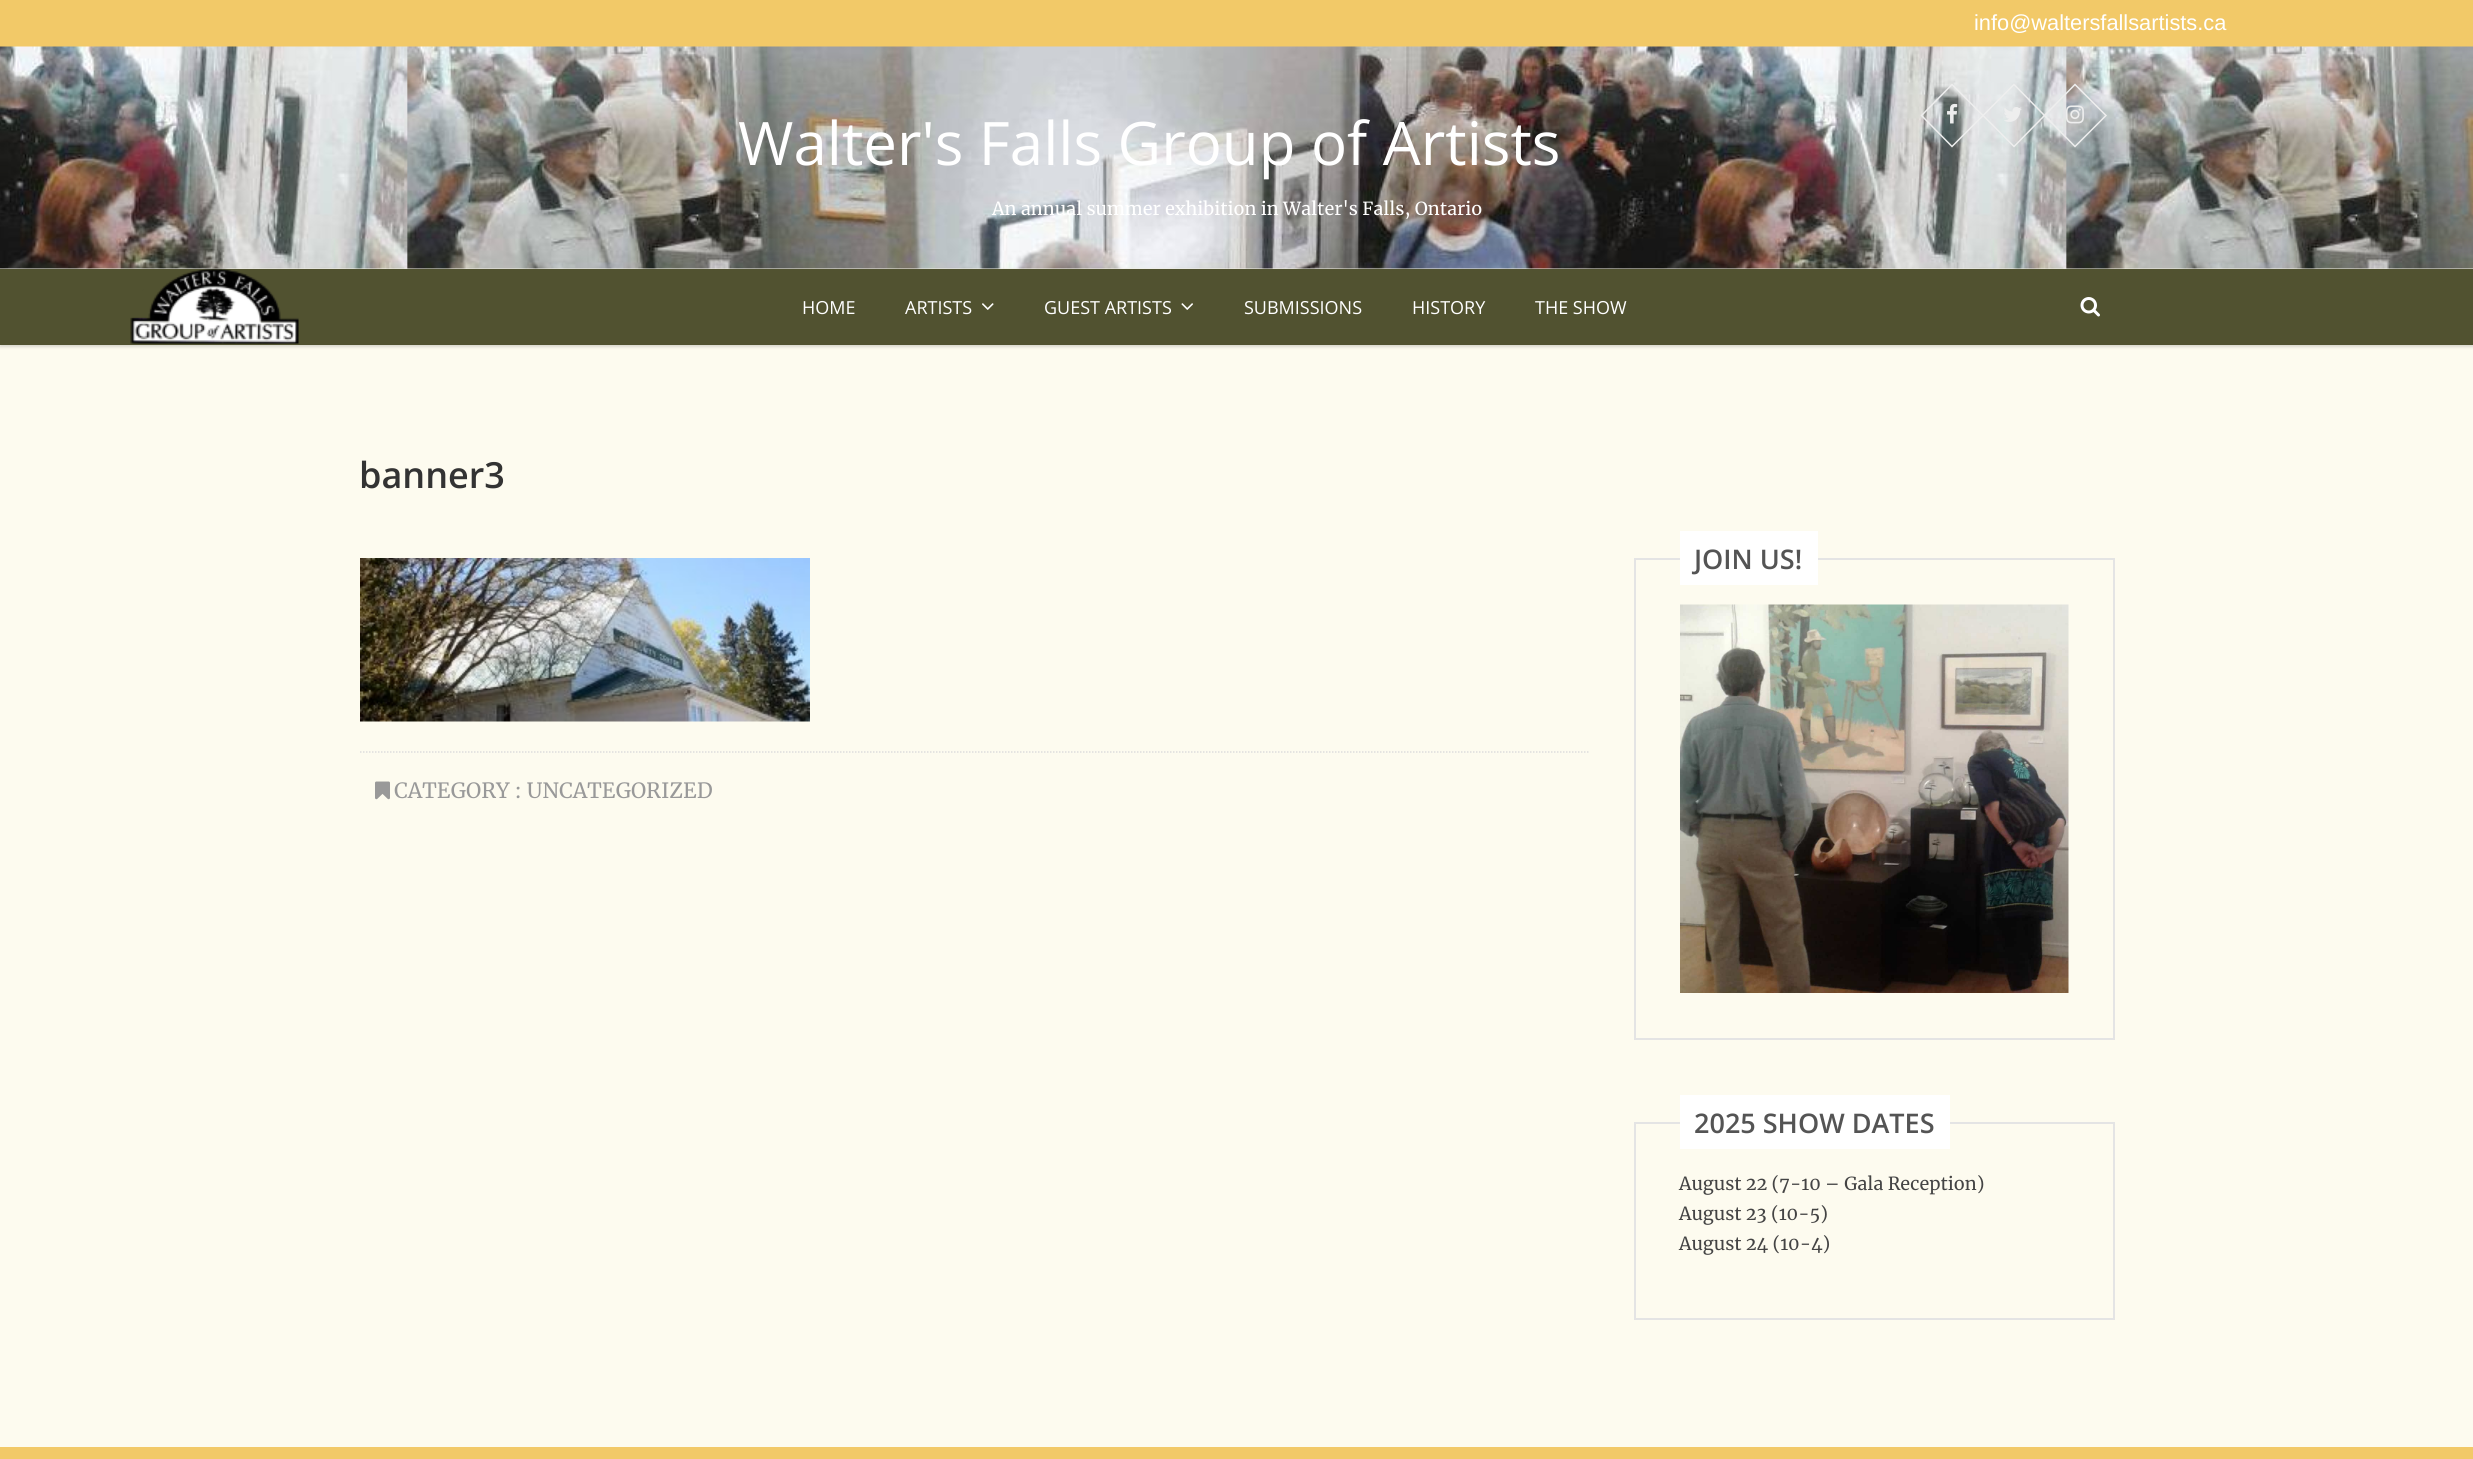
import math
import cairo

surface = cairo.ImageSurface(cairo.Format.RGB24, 2473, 1459)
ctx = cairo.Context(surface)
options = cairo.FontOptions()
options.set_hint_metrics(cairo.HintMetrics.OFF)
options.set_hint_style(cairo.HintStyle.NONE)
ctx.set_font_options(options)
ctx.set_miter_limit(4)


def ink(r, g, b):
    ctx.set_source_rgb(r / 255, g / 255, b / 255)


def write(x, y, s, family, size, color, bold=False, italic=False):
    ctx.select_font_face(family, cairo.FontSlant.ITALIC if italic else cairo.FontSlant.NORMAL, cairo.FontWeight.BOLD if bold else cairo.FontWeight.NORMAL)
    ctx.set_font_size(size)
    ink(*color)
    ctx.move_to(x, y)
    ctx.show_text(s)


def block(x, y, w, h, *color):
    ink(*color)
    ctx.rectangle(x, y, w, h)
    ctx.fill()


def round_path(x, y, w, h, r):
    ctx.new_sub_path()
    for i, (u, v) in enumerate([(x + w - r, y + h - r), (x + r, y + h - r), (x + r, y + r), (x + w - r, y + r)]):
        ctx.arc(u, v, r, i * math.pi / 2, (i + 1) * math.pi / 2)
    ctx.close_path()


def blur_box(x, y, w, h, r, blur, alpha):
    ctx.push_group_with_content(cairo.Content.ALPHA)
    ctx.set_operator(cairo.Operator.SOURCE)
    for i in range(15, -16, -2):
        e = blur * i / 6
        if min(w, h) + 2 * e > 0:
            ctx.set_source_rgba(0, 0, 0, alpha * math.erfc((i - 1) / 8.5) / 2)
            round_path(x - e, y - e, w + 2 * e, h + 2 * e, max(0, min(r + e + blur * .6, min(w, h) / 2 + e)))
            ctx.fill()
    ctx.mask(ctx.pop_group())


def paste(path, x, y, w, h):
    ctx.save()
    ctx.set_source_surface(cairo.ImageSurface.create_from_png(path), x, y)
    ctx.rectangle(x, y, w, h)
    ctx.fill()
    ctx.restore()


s1 = dict(family="Liberation Sans", size=21.8, color=(255, 255, 255))
s2 = dict(family="Open Sans", size=60, color=(255, 255, 255))
s3 = dict(family="Merriweather", size=18, color=(255, 255, 255))
s4 = dict(family="Open Sans", size=18, color=(255, 255, 255))
s5 = dict(family="Open Sans SemiBold", size=36, color=(51, 51, 51))
s6 = dict(family="Merriweather", size=21, color=(153, 153, 153))
s7 = dict(family="Open Sans SemiBold", size=27, color=(84, 84, 84))
s8 = dict(family="Merriweather", size=18, color=(68, 68, 68))

ink(253, 251, 239)
ctx.paint()
block(0, 0, 2473, 47, 242, 201, 104)
write(1974, 30, "info@waltersfallsartists.ca", **s1)
paste("pic1.png", 0, 46, 2473, 223)
write(738, 165, "Walter's Falls Group of Artists", **s2)
write(992, 215, "An annual summer exhibition in Walter's Falls, Ontario", **s3)
ctx.new_path()
ctx.move_to(1921.5, 115.5)
ctx.line_to(1952, 84.5)
ctx.line_to(1983, 115.5)
ctx.line_to(1952, 146.5)
ctx.close_path()
ink(238, 238, 238)
ctx.set_line_width(1.5)
ctx.stroke()
paste("pic2.png", 1947, 103, 11, 21)
ctx.new_path()
ctx.move_to(1983, 115.5)
ctx.line_to(2014, 84.5)
ctx.line_to(2044.5, 115.5)
ctx.line_to(2014, 146.5)
ctx.close_path()
ctx.stroke()
paste("pic3.png", 2004, 107, 18, 15)
ctx.new_path()
ctx.move_to(2044.5, 115.5)
ctx.line_to(2075, 84.5)
ctx.line_to(2106, 115.5)
ctx.line_to(2075, 146.5)
ctx.close_path()
ctx.stroke()
paste("pic4.png", 2066, 105, 18, 19)
ink(0, 0, 0)
blur_box(0, 270, 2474, 77, 0, 1.5, 0.15)
block(0, 269, 2473, 76, 81, 82, 48)
paste("pic5.png", 130, 268, 169, 76)
write(802, 314, "HOME", **s4)
write(905, 314, "ARTISTS", **s4)
paste("pic6.png", 982, 303, 12, 7)
write(1044, 314, "GUEST ARTISTS", **s4)
paste("pic7.png", 1181, 303, 12, 7)
write(1244, 314, "SUBMISSIONS", **s4)
write(1412, 314, "HISTORY", **s4)
write(1535, 314, "THE SHOW", **s4)
paste("pic8.png", 2080, 297, 20, 20)
write(359, 488, "banner3", **s5)
paste("pic9.png", 360, 558, 450, 164)
ctx.new_path()
ctx.move_to(360, 752)
ctx.line_to(1588.5, 752)
ink(221, 221, 221)
ctx.set_dash([1.5, 1.5])
ctx.stroke()
paste("pic10.png", 375, 781, 15, 19)
write(394, 798, "CATEGORY : UNCATEGORIZED", **s6)
ctx.rectangle(1635, 559, 479, 480)
ink(228, 228, 228)
ctx.set_line_width(2)
ctx.set_dash([])
ctx.stroke()
block(1680, 531, 138, 54, 255, 255, 255)
write(1694, 569, "JOIN US!", **s7)
paste("pic11.png", 1680, 604, 389, 389)
ctx.rectangle(1635, 1123, 479, 196)
ink(228, 228, 228)
ctx.stroke()
block(1680, 1095, 270, 54, 255, 255, 255)
write(1694, 1133, "2025 SHOW DATES", **s7)
write(1679, 1190, "August 22 (7-10 – Gala Reception)", **s8)
write(1679, 1220, "August 23 (10-5)", **s8)
write(1679, 1250, "August 24 (10-4)", **s8)
block(0, 1447, 2473, 12, 242, 201, 104)
surface.write_to_png("screenshot.png")
